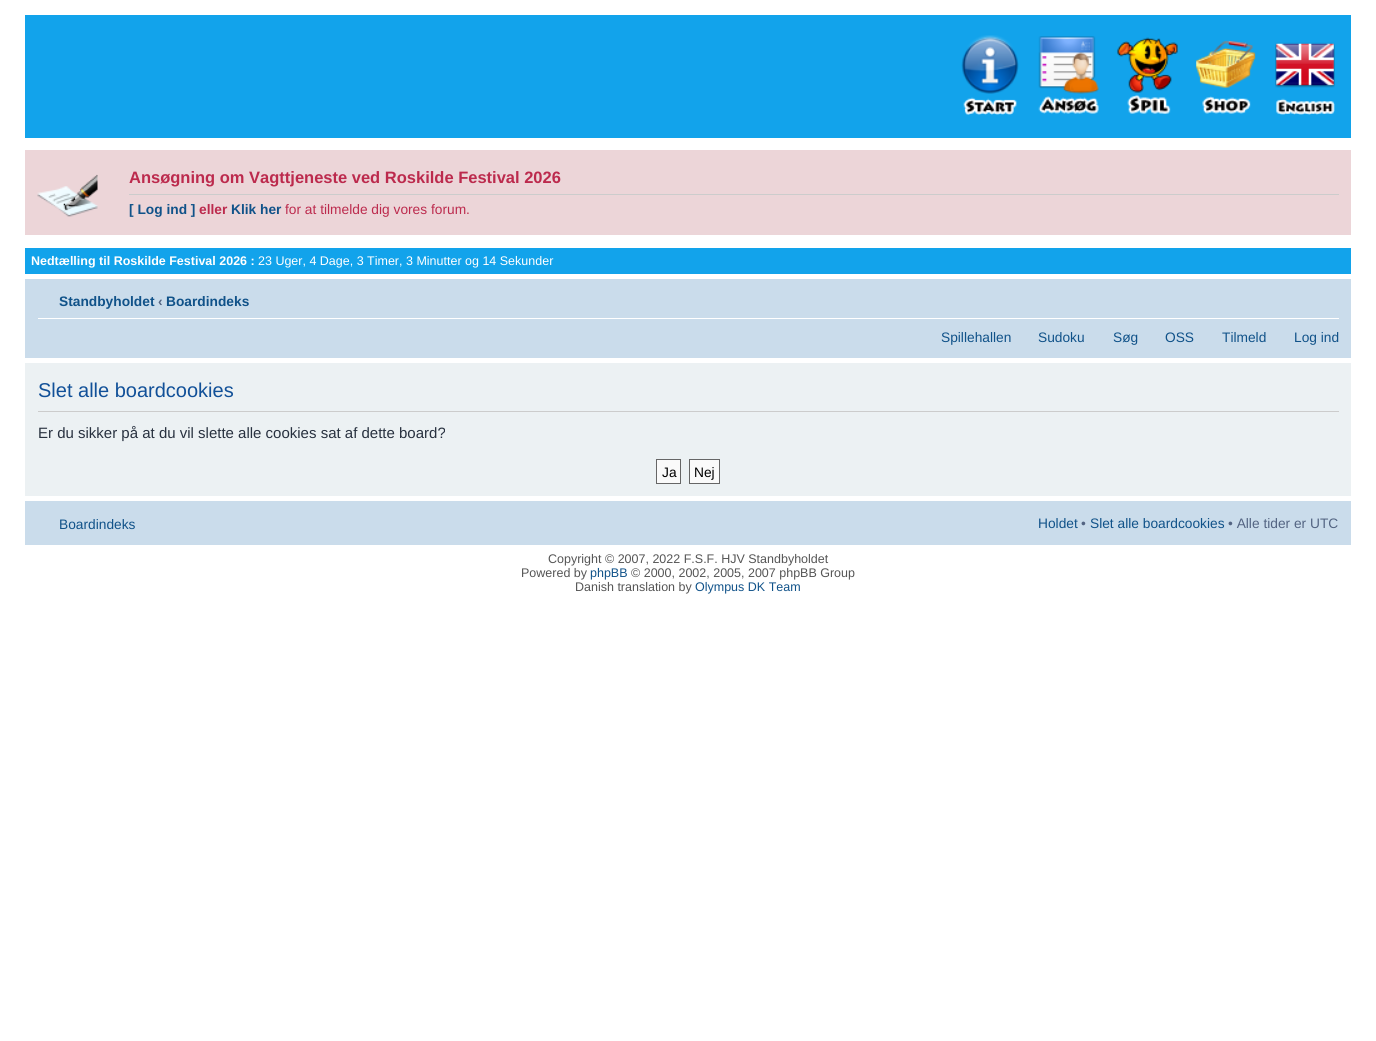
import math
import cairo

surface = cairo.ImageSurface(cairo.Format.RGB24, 1376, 1041)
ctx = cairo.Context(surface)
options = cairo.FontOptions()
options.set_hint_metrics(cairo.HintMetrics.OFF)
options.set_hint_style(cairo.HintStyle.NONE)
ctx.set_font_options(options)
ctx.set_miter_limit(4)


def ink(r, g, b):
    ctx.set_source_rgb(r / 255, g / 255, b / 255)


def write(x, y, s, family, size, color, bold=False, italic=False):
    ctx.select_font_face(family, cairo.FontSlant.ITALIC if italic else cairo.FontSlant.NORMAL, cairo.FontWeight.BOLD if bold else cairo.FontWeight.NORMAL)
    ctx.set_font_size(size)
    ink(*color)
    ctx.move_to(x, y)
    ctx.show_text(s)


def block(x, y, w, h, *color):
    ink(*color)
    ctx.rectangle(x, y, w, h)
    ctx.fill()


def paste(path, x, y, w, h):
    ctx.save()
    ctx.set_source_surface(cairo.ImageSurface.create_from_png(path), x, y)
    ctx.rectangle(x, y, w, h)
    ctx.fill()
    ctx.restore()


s1 = dict(family="Liberation Sans", size=16.5, color=(188, 42, 77), bold=True)
s2 = dict(family="Liberation Sans", size=13.75, color=(16, 82, 137), bold=True)
s3 = dict(family="Liberation Sans", size=13.75, color=(188, 42, 77), bold=True)
s4 = dict(family="Liberation Sans", size=13.75, color=(188, 42, 77))
s5 = dict(family="Liberation Sans", size=12.5, color=(255, 255, 255), bold=True)
s6 = dict(family="Liberation Sans", size=12.5, color=(255, 255, 255))
s7 = dict(family="Liberation Sans", size=13.75, color=(83, 100, 130), bold=True)
s8 = dict(family="Liberation Sans", size=13.75, color=(16, 82, 137))
s9 = dict(family="Liberation Sans", size=20, color=(17, 80, 152))
s10 = dict(family="Liberation Sans", size=15, color=(40, 49, 63))
s11 = dict(family="Liberation Sans", size=13.75, color=(0, 0, 0))
s12 = dict(family="Liberation Sans", size=13.75, color=(83, 100, 130))
s13 = dict(family="Liberation Sans", size=12.5, color=(85, 85, 85))
s14 = dict(family="Liberation Sans", size=12.5, color=(16, 82, 137))

ink(255, 255, 255)
ctx.paint()
block(25, 15, 1326, 123, 18, 163, 235)
paste("pic1.png", 961, 35, 58, 80)
paste("pic2.png", 1038, 36, 61, 78)
paste("pic3.png", 1117, 37, 61, 77)
paste("pic4.png", 1196, 41, 60, 73)
paste("pic5.png", 1275, 42, 60, 73)
block(25, 150, 1326, 85, 236, 213, 216)
paste("pic6.png", 37, 174, 61, 43)
write(129, 183, "Ansøgning om Vagttjeneste ved Roskilde Festival 2026", **s1)
block(129, 194, 1210, 1, 204, 204, 204)
write(129, 214, "[ Log ind ]", **s2)
write(199, 214, "eller", **s3)
write(231, 214, "Klik her", **s2)
write(285, 214, "for at tilmelde dig vores forum.", **s4)
block(25, 248, 1326, 26, 18, 163, 235)
write(31, 265, "Nedtælling til Roskilde Festival 2026 :", **s5)
write(258, 265, "23 Uger, 4 Dage, 3 Timer, 3 Minutter og 14 Sekunder", **s6)
block(25, 279, 1326, 79, 202, 220, 235)
block(38, 318, 1301, 1, 255, 255, 255)
write(59, 306, "Standbyholdet", **s2)
write(158, 306, "‹", **s7)
write(166, 306, "Boardindeks", **s2)
write(941, 342, "Spillehallen", **s8)
write(1038, 342, "Sudoku", **s8)
write(1113, 342, "Søg", **s8)
write(1165, 342, "OSS", **s8)
write(1222, 342, "Tilmeld", **s8)
write(1294, 342, "Log ind", **s8)
block(25, 363, 1326, 133, 236, 241, 243)
block(38, 411, 1301, 1, 204, 204, 204)
write(38, 397, "Slet alle boardcookies", **s9)
write(38, 438, "Er du sikker på at du vil slette alle cookies sat af dette board?", **s10)
ink(250, 250, 250)
ctx.rectangle(656.5, 459.5, 24, 24)
ctx.fill_preserve()
ink(102, 102, 102)
ctx.set_line_width(1)
ctx.stroke()
write(662, 477, "Ja", **s11)
ink(250, 250, 250)
ctx.rectangle(689.5, 459.5, 30, 24)
ctx.fill_preserve()
ink(102, 102, 102)
ctx.stroke()
write(694, 477, "Nej", **s11)
block(25, 501, 1326, 44, 202, 220, 235)
write(59, 529, "Boardindeks", **s8)
write(1038, 528, "Holdet", **s8)
write(1081, 528, "•", **s12)
write(1090, 528, "Slet alle boardcookies", **s8)
write(1228, 528, "• Alle tider er UTC", **s12)
write(548, 563, "Copyright © 2007, 2022 F.S.F. HJV Standbyholdet", **s13)
write(521, 577, "Powered by", **s13)
write(590, 577, "phpBB", **s14)
write(631, 577, "© 2000, 2002, 2005, 2007 phpBB Group", **s13)
write(575, 591, "Danish translation by", **s13)
write(695, 591, "Olympus DK Team", **s14)
surface.write_to_png("screenshot.png")
